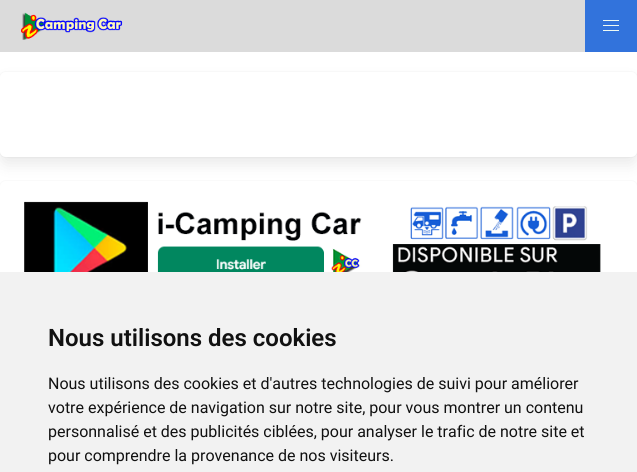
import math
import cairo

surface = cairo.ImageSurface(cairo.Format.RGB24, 637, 472)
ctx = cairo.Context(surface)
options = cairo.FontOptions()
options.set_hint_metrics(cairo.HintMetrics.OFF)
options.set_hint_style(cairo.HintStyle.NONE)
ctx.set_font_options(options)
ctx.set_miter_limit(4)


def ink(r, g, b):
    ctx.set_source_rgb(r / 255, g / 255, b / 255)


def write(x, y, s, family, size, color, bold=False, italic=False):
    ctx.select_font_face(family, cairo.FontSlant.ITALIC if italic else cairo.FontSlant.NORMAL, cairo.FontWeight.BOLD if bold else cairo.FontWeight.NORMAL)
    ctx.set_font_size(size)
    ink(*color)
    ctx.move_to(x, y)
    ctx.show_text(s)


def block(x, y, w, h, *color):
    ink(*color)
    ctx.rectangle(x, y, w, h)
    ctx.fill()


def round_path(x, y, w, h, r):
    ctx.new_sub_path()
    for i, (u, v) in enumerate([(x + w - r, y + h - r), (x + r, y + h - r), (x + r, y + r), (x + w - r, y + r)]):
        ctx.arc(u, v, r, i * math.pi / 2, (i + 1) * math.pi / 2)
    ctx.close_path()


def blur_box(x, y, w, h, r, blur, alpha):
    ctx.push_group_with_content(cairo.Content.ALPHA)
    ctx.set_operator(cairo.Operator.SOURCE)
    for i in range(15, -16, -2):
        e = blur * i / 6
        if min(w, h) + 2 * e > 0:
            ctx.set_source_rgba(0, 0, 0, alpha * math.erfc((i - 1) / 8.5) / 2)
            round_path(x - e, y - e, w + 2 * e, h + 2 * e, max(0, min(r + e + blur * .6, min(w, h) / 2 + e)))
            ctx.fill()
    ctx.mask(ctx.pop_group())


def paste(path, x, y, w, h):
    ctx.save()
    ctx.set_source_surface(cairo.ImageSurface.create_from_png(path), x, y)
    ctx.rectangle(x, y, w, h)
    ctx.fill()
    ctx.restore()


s1 = dict(family="Roboto SemiBold", size=24, color=(17, 17, 17))
s2 = dict(family="Roboto", size=16, color=(17, 17, 17))

ink(255, 255, 255)
ctx.paint()
block(0, 0, 585, 52, 219, 219, 219)
paste("pic1.png", 21, 12, 102, 28)
block(585, 0, 52, 52, 50, 115, 220)
block(603, 20, 16, 1, 239, 250, 243)
block(603, 25, 16, 1, 239, 250, 243)
block(603, 30, 16, 1, 239, 250, 243)
round_path(-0.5, 71.5, 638, 86, 6.5)
ink(250, 250, 250)
ctx.set_line_width(1)
ctx.stroke()
ink(10, 10, 10)
blur_box(2, 82, 633, 81, 4, 8, 0.1)
ink(255, 255, 255)
round_path(0, 72, 637, 85, 6)
ctx.fill()
round_path(-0.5, 180.5, 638, 166, 6.5)
ink(250, 250, 250)
ctx.stroke()
paste("pic2.png", 24, 201, 577, 71)
block(0, 272, 637, 200, 242, 242, 242)
write(48, 346, "Nous utilisons des cookies", **s1)
write(48, 389, "Nous utilisons des cookies et d'autres technologies de suivi pour améliorer", **s2)
write(48, 413, "votre expérience de navigation sur notre site, pour vous montrer un contenu", **s2)
write(48, 437, "personnalisé et des publicités ciblées, pour analyser le trafic de notre site et", **s2)
write(48, 461, "pour comprendre la provenance de nos visiteurs.", **s2)
surface.write_to_png("screenshot.png")
